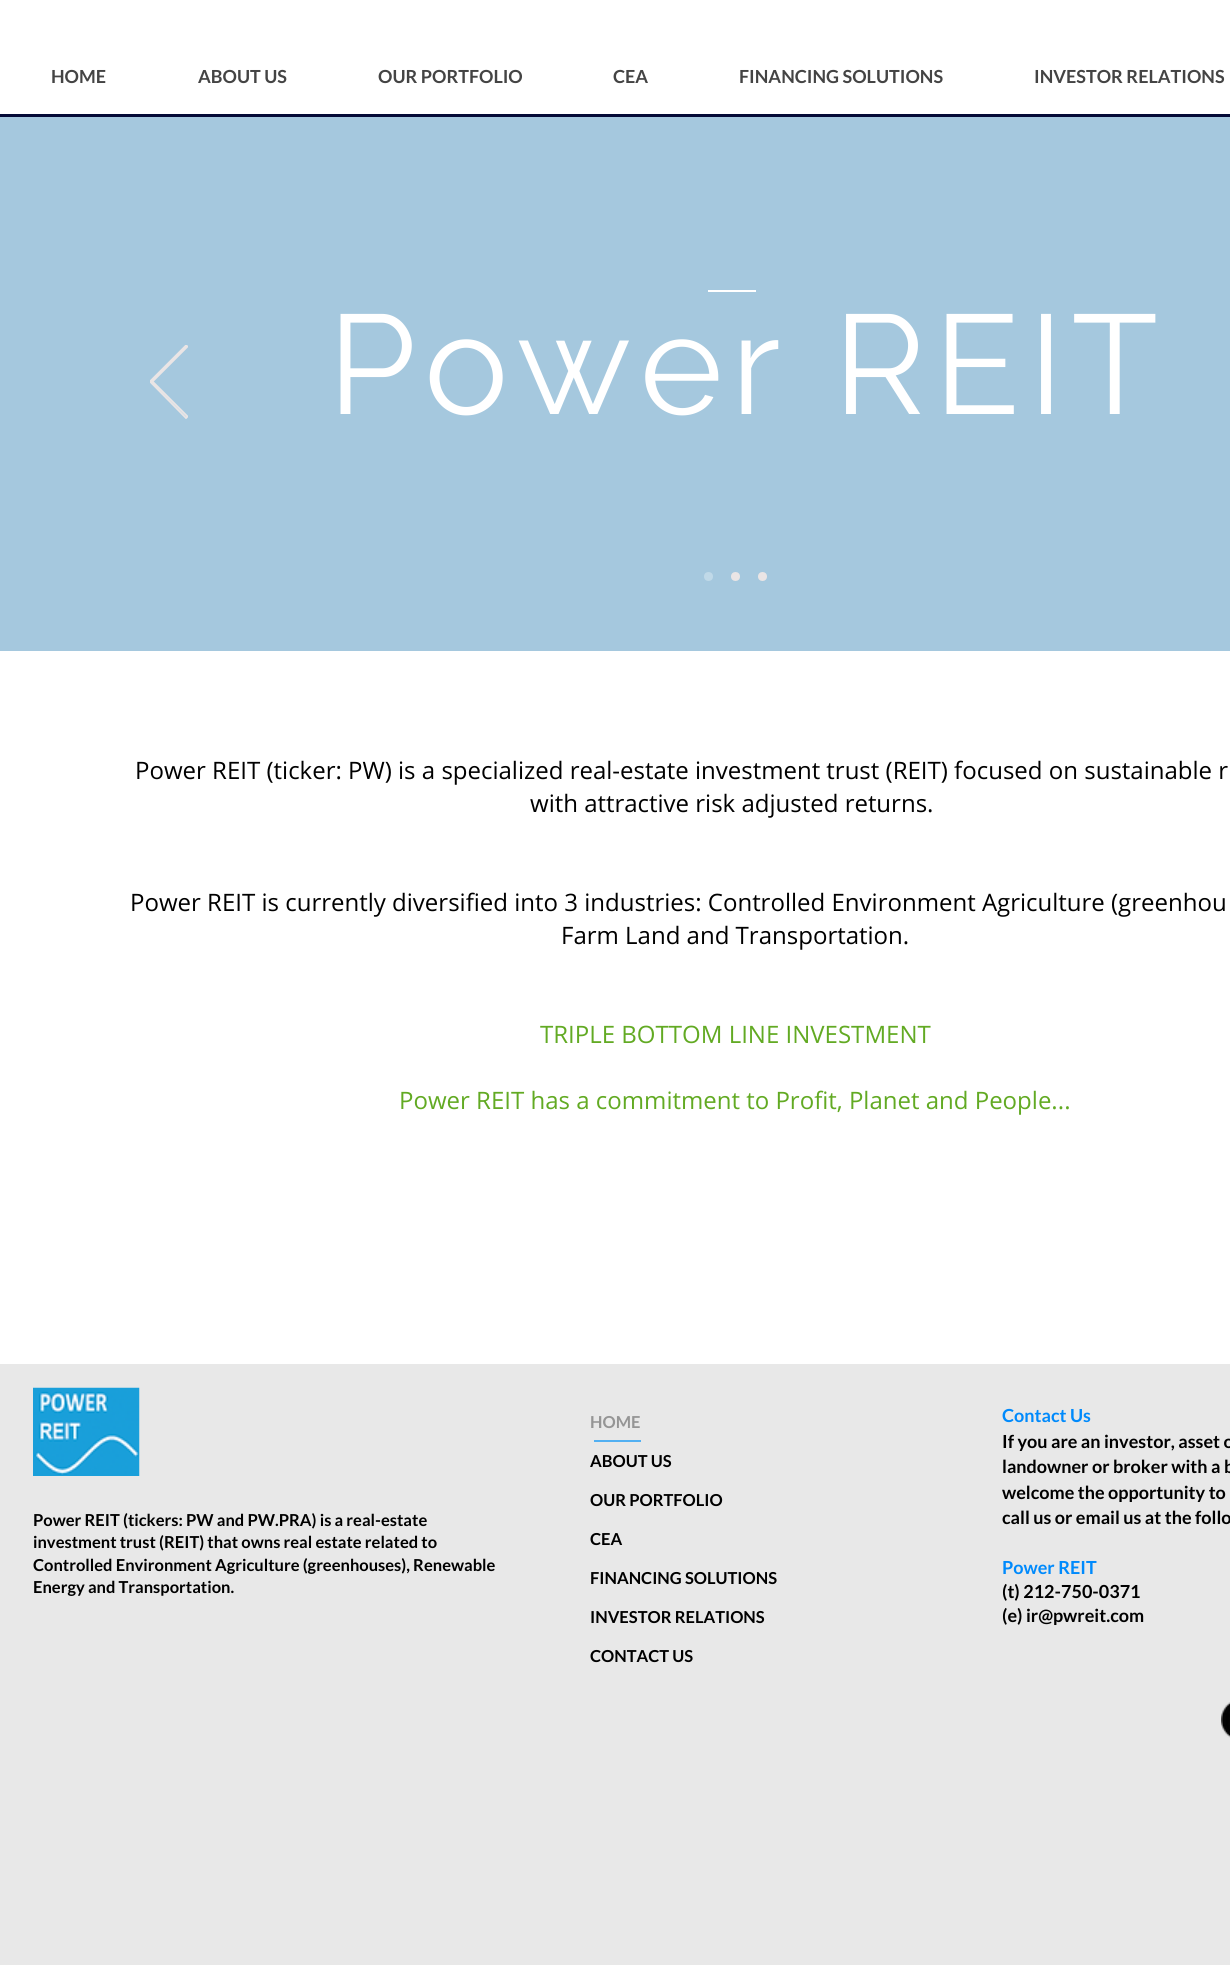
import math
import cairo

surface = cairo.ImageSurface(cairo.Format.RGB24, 1230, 1965)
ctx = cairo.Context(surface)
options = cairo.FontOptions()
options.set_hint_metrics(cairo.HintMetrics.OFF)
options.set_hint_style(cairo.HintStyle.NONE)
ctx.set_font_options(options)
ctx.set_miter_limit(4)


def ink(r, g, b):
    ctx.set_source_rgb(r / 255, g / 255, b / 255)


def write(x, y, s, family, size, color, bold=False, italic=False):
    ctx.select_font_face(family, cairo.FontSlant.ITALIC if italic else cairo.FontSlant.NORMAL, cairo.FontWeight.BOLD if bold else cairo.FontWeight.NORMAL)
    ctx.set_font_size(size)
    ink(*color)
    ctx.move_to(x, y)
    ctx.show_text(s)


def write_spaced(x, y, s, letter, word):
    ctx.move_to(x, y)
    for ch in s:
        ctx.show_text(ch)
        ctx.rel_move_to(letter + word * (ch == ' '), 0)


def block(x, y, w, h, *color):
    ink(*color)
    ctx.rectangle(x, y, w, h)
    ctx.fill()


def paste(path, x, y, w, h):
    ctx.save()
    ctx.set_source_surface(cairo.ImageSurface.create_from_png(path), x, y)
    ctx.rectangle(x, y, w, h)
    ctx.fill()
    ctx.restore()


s1 = dict(family="Lato", size=18, color=(68, 68, 68), bold=True)
s2 = dict(family="Open Sans", size=24, color=(0, 0, 0))
s3 = dict(family="Open Sans", size=24, color=(98, 170, 35))
s4 = dict(family="Lato", size=16.5, color=(149, 149, 149), bold=True)
s5 = dict(family="Lato", size=16.5, color=(0, 0, 0), bold=True)
s6 = dict(family="Lato", size=18, color=(0, 138, 252), bold=True)
s7 = dict(family="Lato", size=18, color=(0, 0, 0), bold=True)

ink(255, 255, 255)
ctx.paint()
write(51, 83, "HOME", **s1)
write(198, 83, "ABOUT US", **s1)
write(378, 83, "OUR PORTFOLIO", **s1)
write(613, 83, "CEA", **s1)
write(739, 83, "FINANCING SOLUTIONS", **s1)
write(1034, 83, "INVESTOR RELATIONS", **s1)
block(0, 114, 1230, 3, 4, 10, 54)
block(0, 117, 1230, 534, 165, 200, 222)
ctx.save()
ctx.rectangle(150, 345, 38, 74)
ctx.clip()
ctx.new_path()
ctx.move_to(186, 418)
ctx.line_to(150, 381.5)
ctx.line_to(186, 345.5)
ctx.line_to(187.5, 346.5)
ctx.line_to(152.5, 381.5)
ctx.line_to(187.5, 416.5)
ctx.close_path()
ink(234, 229, 229)
ctx.set_line_width(1.8)
ctx.stroke()
ctx.restore()
block(708, 290, 48, 2, 255, 255, 255)
ctx.select_font_face("Raleway")
ctx.set_font_size(141)
write_spaced(328, 414, "Power REIT", 8.5, 0)
ink(192, 217, 232)
ctx.new_path()
ctx.arc(708.5, 576.5, 4.5, 0, 2 * math.pi)
ctx.fill()
ink(234, 229, 229)
ctx.arc(735.5, 576.5, 4.5, 0, 2 * math.pi)
ctx.fill()
ctx.arc(762.5, 576.5, 4.5, 0, 2 * math.pi)
ctx.fill()
write(135, 779, "Power REIT (ticker: PW) is a specialized real-estate investment trust (REIT) focused on sustainable r", **s2)
write(530, 812, "with attractive risk adjusted returns.", **s2)
write(130, 911, "Power REIT is currently diversified into 3 industries: Controlled Environment Agriculture (greenhou", **s2)
write(561, 944, "Farm Land and Transportation.", **s2)
write(540, 1043, "TRIPLE BOTTOM LINE INVESTMENT", **s3)
write(399, 1109, "Power REIT has a commitment to Profit, Planet and People...", **s3)
block(0, 1364, 1230, 601, 232, 232, 232)
paste("pic1.png", 33, 1387, 107, 89)
write(590, 1428, "HOME", **s4)
write(590, 1467, "ABOUT US", **s5)
write(590, 1506, "OUR PORTFOLIO", **s5)
write(590, 1545, "CEA", **s5)
write(590, 1584, "FINANCING SOLUTIONS", **s5)
write(590, 1623, "INVESTOR RELATIONS", **s5)
write(590, 1662, "CONTACT US", **s5)
block(594, 1440, 47, 2, 82, 176, 242)
write(1002, 1422, "Contact Us", **s6)
write(1002, 1448, "If you are an investor, asset o", **s7)
write(1002, 1473, "landowner or broker with a b", **s7)
write(1002, 1499, "welcome the opportunity to", **s7)
write(1002, 1524, "call us or email us at the follo", **s7)
write(1002, 1574, "Power REIT", **s6)
write(1002, 1598, "(t) 212-750-0371", **s7)
write(1002, 1622, "(e) ir@pwreit.com", **s7)
write(33, 1526, "Power REIT (tickers: PW and PW.PRA) is a real-estate", **s5)
write(33, 1548, "investment trust (REIT) that owns real estate related to", **s5)
write(33, 1571, "Controlled Environment Agriculture (greenhouses), Renewable", **s5)
write(33, 1593, "Energy and Transportation.", **s5)
paste("pic2.png", 1221, 1702, 9, 36)
surface.write_to_png("screenshot.png")
